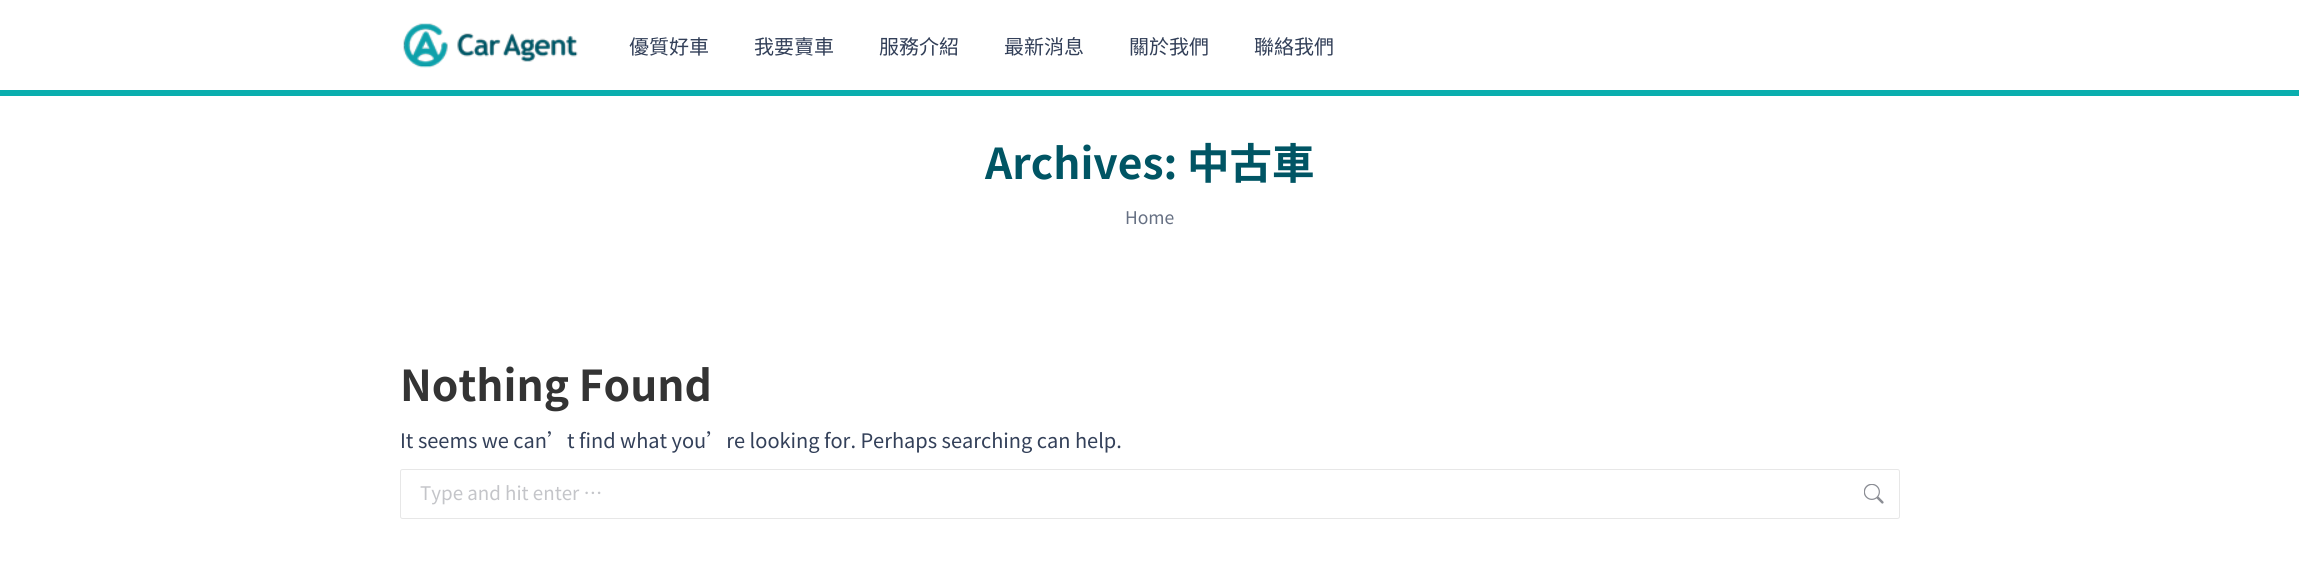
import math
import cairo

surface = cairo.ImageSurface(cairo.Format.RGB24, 2299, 565)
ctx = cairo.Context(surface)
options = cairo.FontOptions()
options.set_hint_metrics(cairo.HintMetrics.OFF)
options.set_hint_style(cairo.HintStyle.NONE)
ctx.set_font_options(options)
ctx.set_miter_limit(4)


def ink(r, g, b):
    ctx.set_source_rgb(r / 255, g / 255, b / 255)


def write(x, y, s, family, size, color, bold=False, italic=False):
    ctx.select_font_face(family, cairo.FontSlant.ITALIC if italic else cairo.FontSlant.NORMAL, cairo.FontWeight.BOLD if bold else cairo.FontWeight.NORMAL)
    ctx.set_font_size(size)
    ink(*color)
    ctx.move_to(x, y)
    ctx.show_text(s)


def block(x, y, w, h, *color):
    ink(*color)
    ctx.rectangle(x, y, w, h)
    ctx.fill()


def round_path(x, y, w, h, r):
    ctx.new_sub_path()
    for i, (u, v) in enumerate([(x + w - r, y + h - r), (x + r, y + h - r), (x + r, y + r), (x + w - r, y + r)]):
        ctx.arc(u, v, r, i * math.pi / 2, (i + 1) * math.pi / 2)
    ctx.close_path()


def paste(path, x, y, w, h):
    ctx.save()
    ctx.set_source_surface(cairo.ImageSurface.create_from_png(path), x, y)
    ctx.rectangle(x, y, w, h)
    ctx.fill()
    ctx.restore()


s1 = dict(family="Noto Sans TC", size=20, color=(51, 64, 89))
s2 = dict(family="Noto Sans TC", size=42.5, color=(0, 85, 100), bold=True)
s3 = dict(family="Noto Sans TC", size=17.5, color=(102, 112, 131))
s4 = dict(family="Noto Sans TC", size=42.5, color=(51, 51, 51), bold=True)
s5 = dict(family="Noto Sans TC", size=18.75, color=(196, 197, 201))

ink(255, 255, 255)
ctx.paint()
block(0, 90, 2299, 6, 10, 174, 174)
paste("pic1.png", 403, 23, 175, 45)
write(629, 54, "優質好車", **s1)
write(754, 54, "我要賣車", **s1)
write(879, 54, "服務介紹", **s1)
write(1004, 54, "最新消息", **s1)
write(1129, 54, "關於我們", **s1)
write(1254, 54, "聯絡我們", **s1)
write(985, 179, "Archives: 中古車", **s2)
write(1125, 224, "Home", **s3)
write(400, 401, "Nothing Found", **s4)
write(400, 448, "It seems we can’t find what you’re looking for. Perhaps searching can help.", **s1)
round_path(400.5, 469.5, 1499, 49, 2)
ink(231, 231, 231)
ctx.set_line_width(1)
ctx.stroke()
write(420, 500, "Type and hit enter …", **s5)
paste("pic2.png", 1864, 484, 20, 20)
surface.write_to_png("screenshot.png")
